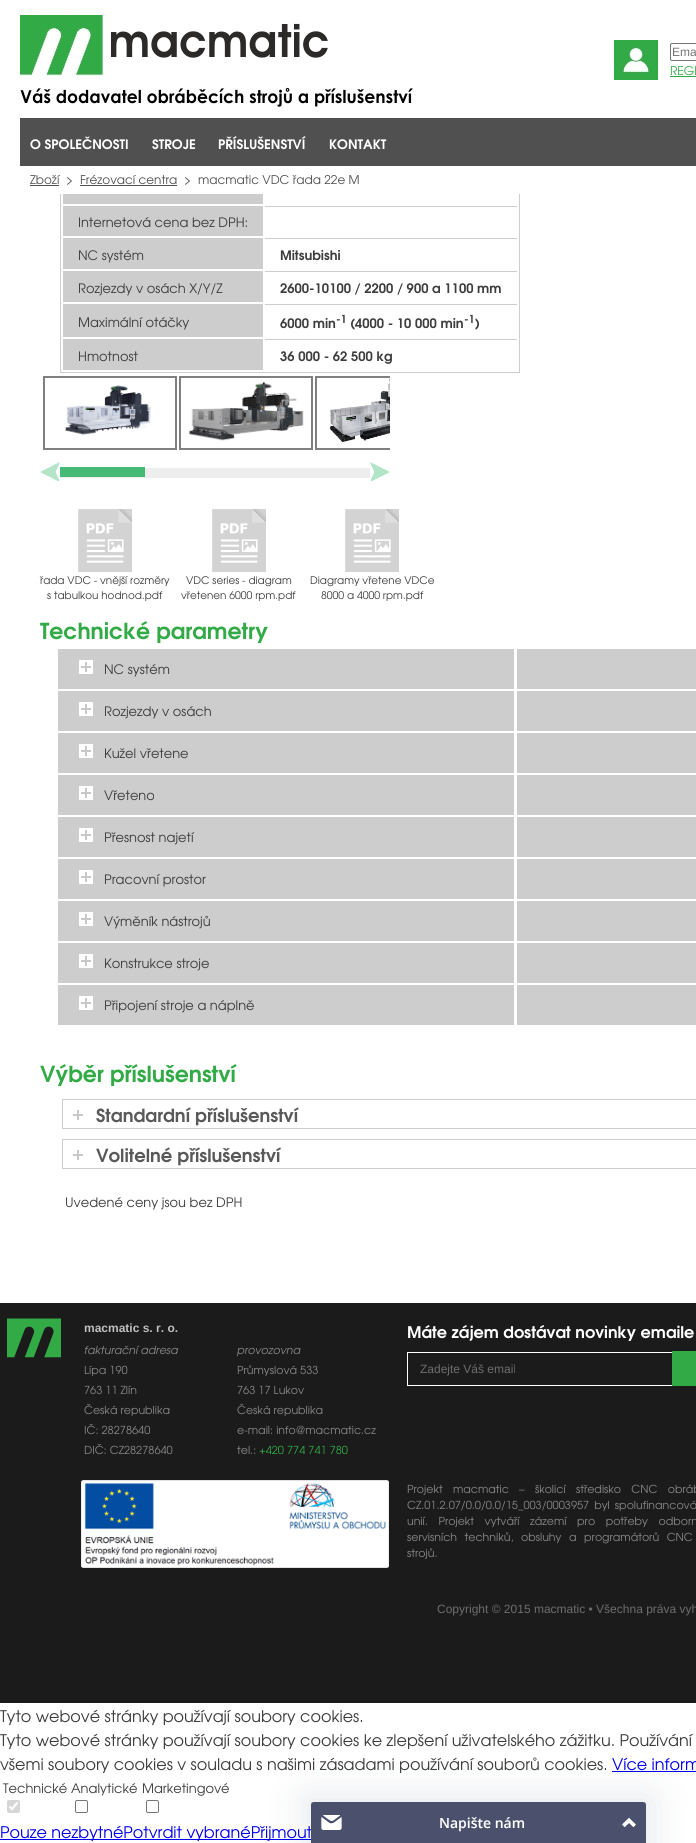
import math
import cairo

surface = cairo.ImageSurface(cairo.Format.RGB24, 696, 1843)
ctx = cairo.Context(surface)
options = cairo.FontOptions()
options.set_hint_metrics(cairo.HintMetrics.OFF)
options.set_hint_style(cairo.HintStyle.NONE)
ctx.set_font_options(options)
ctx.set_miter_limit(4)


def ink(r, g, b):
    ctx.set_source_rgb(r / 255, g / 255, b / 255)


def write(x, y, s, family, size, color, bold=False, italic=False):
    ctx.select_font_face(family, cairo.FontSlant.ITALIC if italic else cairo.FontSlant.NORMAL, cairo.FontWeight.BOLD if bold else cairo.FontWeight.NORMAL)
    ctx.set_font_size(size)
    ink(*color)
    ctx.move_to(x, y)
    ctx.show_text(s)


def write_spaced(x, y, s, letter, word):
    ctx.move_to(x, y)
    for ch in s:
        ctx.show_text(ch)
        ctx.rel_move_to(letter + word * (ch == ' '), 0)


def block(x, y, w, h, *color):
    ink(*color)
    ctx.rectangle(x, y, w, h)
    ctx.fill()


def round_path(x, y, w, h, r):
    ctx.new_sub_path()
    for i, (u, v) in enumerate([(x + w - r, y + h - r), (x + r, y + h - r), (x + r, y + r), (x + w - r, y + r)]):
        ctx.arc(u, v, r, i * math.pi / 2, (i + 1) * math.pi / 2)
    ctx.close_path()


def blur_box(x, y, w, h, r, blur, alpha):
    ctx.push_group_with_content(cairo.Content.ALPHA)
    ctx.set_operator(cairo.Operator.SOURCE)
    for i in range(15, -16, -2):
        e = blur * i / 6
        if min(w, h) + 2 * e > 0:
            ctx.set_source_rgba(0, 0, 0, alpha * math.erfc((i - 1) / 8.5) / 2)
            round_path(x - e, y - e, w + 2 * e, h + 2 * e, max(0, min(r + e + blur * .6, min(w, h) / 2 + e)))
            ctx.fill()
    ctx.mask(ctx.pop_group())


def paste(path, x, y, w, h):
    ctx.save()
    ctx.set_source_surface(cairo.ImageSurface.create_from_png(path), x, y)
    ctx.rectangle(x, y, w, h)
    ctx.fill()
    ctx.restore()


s1 = dict(family="Liberation Sans", size=12, color=(117, 117, 117))
s2 = dict(family="TeX Gyre Adventor", size=12, color=(50, 170, 70))
s3 = dict(family="TeX Gyre Adventor", size=13, color=(255, 255, 255), bold=True)
s4 = dict(family="TeX Gyre Adventor", size=12, color=(80, 80, 80))
s5 = dict(family="TeX Gyre Adventor", size=13, color=(61, 61, 61))
s6 = dict(family="TeX Gyre Adventor", size=13, color=(61, 61, 61), bold=True)
s7 = dict(family="TeX Gyre Adventor", size=11, color=(61, 61, 61), bold=True)
s8 = dict(family="TeX Gyre Adventor", size=10.4, color=(61, 61, 61))
s9 = dict(family="TeX Gyre Adventor", size=22, color=(50, 170, 70), bold=True)
s10 = dict(family="TeX Gyre Adventor", size=18, color=(89, 89, 89), bold=True)
s11 = dict(family="Liberation Sans", size=12, color=(192, 192, 192), bold=True)
s12 = dict(family="TeX Gyre Adventor", size=11, color=(136, 136, 136), italic=True)
s13 = dict(family="TeX Gyre Adventor", size=11, color=(136, 136, 136))
s14 = dict(family="TeX Gyre Adventor", size=11, color=(50, 170, 70))
s15 = dict(family="TeX Gyre Adventor", size=16, color=(255, 255, 255), bold=True)
s16 = dict(family="Liberation Sans", size=12, color=(109, 109, 109))
s17 = dict(family="TeX Gyre Adventor", size=16, color=(61, 61, 61))
s18 = dict(family="TeX Gyre Adventor", size=16, color=(0, 0, 238))

ink(255, 255, 255)
ctx.paint()
ctx.rectangle(60.5, 139.5, 459, 233)
ink(205, 205, 205)
ctx.set_line_width(1)
ctx.stroke()
block(60, 139, 460, 55, 255, 255, 255)
paste("pic1.png", 20, 15, 393, 92)
paste("pic2.png", 614, 40, 44, 40)
round_path(670.5, 43.5, 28, 17, 1.5)
ink(118, 118, 118)
ctx.stroke()
write(672, 56, "Ema", **s1)
write(670, 75, "REGI", **s2)
block(670, 76, 26, 1, 50, 170, 70)
block(20, 118, 676, 48, 80, 80, 80)
write(30, 149, "O SPOLEČNOSTI", **s3)
write(152, 149, "STROJE", **s3)
write(218, 149, "PŘÍSLUŠENSTVÍ", **s3)
write(329, 149, "KONTAKT", **s3)
write(30, 184, "Zboží", **s4)
block(30, 185, 29, 1, 80, 80, 80)
write(66, 184, ">", **s4)
write(80, 184, "Frézovací centra", **s4)
block(80, 185, 97, 1, 80, 80, 80)
write(184, 184, ">", **s4)
write(198, 184, "macmatic VDC řada 22e M", **s4)
block(63, 194, 200, 10, 205, 205, 205)
block(265, 206, 252, 1, 205, 205, 205)
block(63, 206, 200, 30, 205, 205, 205)
write(78, 227, "Internetová cena bez DPH:", **s5)
block(63, 238, 200, 31, 205, 205, 205)
write(78, 260, "NC systém", **s5)
block(265, 238, 252, 1, 205, 205, 205)
write(280, 260, "Mitsubishi", **s6)
block(63, 271, 200, 31, 205, 205, 205)
write(78, 293, "Rozjezdy v osách X/Y/Z", **s5)
block(265, 271, 252, 1, 205, 205, 205)
write(280, 293, "2600-10100 / 2200 / 900 a 1100 mm", **s6)
block(63, 304, 200, 33, 205, 205, 205)
write(78, 327, "Maximální otáčky", **s5)
block(265, 304, 252, 1, 205, 205, 205)
write(280, 328, "6000 min", **s6)
write(336, 323, "-1", **s7)
write(350, 328, "(4000 - 10 000 min", **s6)
write(464, 323, "-1", **s7)
write(475, 328, ")", **s6)
block(63, 339, 200, 31, 205, 205, 205)
write(78, 361, "Hmotnost", **s5)
block(265, 339, 252, 1, 205, 205, 205)
write(280, 361, "36 000 - 62 500 kg", **s6)
ctx.rectangle(44, 377, 132, 72)
ink(128, 128, 128)
ctx.set_line_width(2)
ctx.stroke()
paste("pic3.png", 63, 385, 88, 50)
ctx.rectangle(180, 377, 132, 72)
ctx.stroke()
paste("pic4.png", 188, 381, 116, 60)
ctx.save()
ctx.rectangle(40, 373, 350, 80)
ctx.clip()
ctx.rectangle(316, 377, 132, 72)
ctx.stroke()
ctx.restore()
paste("pic5.png", 329, 379, 61, 64)
paste("pic6.png", 40, 462, 20, 19)
block(60, 468, 310, 10, 237, 237, 237)
block(60, 467, 85, 10, 70, 185, 119)
paste("pic7.png", 370, 462, 20, 19)
paste("pic8.png", 78, 509, 54, 63)
write(40, 584, "řada VDC - vnější rozměry", **s8)
write(47, 599, "s tabulkou hodnod.pdf", **s8)
paste("pic8.png", 212, 509, 54, 63)
write(186, 584, "VDC series - diagram", **s8)
write(181, 599, "vřetenen 6000 rpm.pdf", **s8)
paste("pic8.png", 345, 509, 54, 63)
write(310, 584, "Diagramy vřetene VDCe", **s8)
write(321, 599, "8000 a 4000 rpm.pdf", **s8)
write(40, 639, "Technické parametry", **s9)
block(58, 649, 456, 40, 205, 205, 205)
paste("pic9.png", 79, 660, 14, 14)
write(104, 674, "NC systém", **s5)
block(58, 691, 456, 40, 205, 205, 205)
paste("pic9.png", 79, 702, 14, 14)
write(104, 716, "Rozjezdy v osách", **s5)
block(58, 733, 456, 40, 205, 205, 205)
paste("pic9.png", 79, 744, 14, 14)
write(104, 758, "Kužel vřetene", **s5)
block(58, 775, 456, 40, 205, 205, 205)
paste("pic9.png", 79, 786, 14, 14)
write(104, 800, "Vřeteno", **s5)
block(58, 817, 456, 40, 205, 205, 205)
paste("pic9.png", 79, 828, 14, 14)
write(104, 842, "Přesnost najetí", **s5)
block(58, 859, 456, 40, 205, 205, 205)
paste("pic9.png", 79, 870, 14, 14)
write(104, 884, "Pracovní prostor", **s5)
block(58, 901, 456, 40, 205, 205, 205)
paste("pic9.png", 79, 912, 14, 14)
write(104, 926, "Výměník nástrojů", **s5)
block(58, 943, 456, 40, 205, 205, 205)
paste("pic9.png", 79, 954, 14, 14)
write(104, 968, "Konstrukce stroje", **s5)
block(58, 985, 456, 40, 205, 205, 205)
paste("pic9.png", 79, 996, 14, 14)
write(104, 1010, "Připojení stroje a náplně", **s5)
block(517, 649, 179, 40, 205, 205, 205)
block(517, 691, 179, 40, 205, 205, 205)
block(517, 733, 179, 40, 205, 205, 205)
block(517, 775, 179, 40, 205, 205, 205)
block(517, 817, 179, 40, 205, 205, 205)
block(517, 859, 179, 40, 205, 205, 205)
block(517, 901, 179, 40, 205, 205, 205)
block(517, 943, 179, 40, 205, 205, 205)
block(517, 985, 179, 40, 205, 205, 205)
write(40, 1082, "Výběr příslušenství", **s9)
ctx.rectangle(62.5, 1099.5, 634, 29)
ink(205, 205, 205)
ctx.set_line_width(1)
ctx.stroke()
paste("pic10.png", 73, 1110, 10, 10)
write(96, 1122, "Standardní příslušenství", **s10)
ctx.rectangle(62.5, 1139.5, 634, 29)
ink(205, 205, 205)
ctx.stroke()
paste("pic10.png", 73, 1150, 10, 10)
write(96, 1162, "Volitelné příslušenství", **s10)
write(65, 1207, "Uvedené ceny jsou bez DPH", **s5)
block(0, 1303, 696, 400, 27, 27, 27)
paste("pic11.png", 7, 1318, 54, 40)
write(84, 1332, "macmatic s. r. o.", **s11)
write(84, 1354, "fakturační adresa", **s12)
write(237, 1354, "provozovna", **s12)
write(84, 1374, "Lípa 190", **s13)
write(237, 1374, "Průmyslová 533", **s13)
write(84, 1394, "763 11 Zlín", **s13)
write(237, 1394, "763 17 Lukov", **s13)
write(84, 1414, "Česká republika", **s13)
write(237, 1414, "Česká republika", **s13)
write(84, 1434, "IČ: 28278640", **s13)
write(237, 1434, "e-mail: info@macmatic.cz", **s13)
write(84, 1454, "DIČ: CZ28278640", **s13)
write(237, 1454, "tel.:", **s13)
write(259, 1454, "+420 774 741 780", **s14)
paste("pic12.png", 81, 1480, 308, 88)
write(407, 1338, "Máte zájem dostávat novinky emaile", **s15)
ctx.rectangle(407.5, 1352.5, 267, 33)
ctx.stroke()
write(420, 1373, "Zadejte Váš email", **s16)
block(672, 1351, 24, 35, 50, 170, 70)
ctx.select_font_face("TeX Gyre Adventor")
ctx.set_font_size(11)
ink(136, 136, 136)
write_spaced(407, 1493, "Projekt macmatic – školicí středisko CNC obráb", 0, 7.25)
write_spaced(407, 1509, "CZ.01.2.07/0.0/0.0/15_003/0003957 byl spolufinancová", 0, 2)
write_spaced(407, 1525, "unií. Projekt vytváří zázemí pro potřeby odborn", 0, 7.5)
write_spaced(407, 1541, "servisních techniků, obsluhy a programátorů CNC", 0, 4.5)
write(407, 1557, "strojů.", **s13)
write(437, 1613, "Copyright © 2015 macmatic • Všechna práva vyh", **s16)
write(0, 1722, "Tyto webové stránky používají soubory cookies.", **s17)
write(0, 1746, "Tyto webové stránky používají soubory cookies ke zlepšení uživatelského zážitku. Používání", **s17)
write(0, 1770, "všemi soubory cookies v souladu s našimi zásadami používání souborů cookies.", **s17)
write(612, 1770, "Více inform", **s18)
block(612, 1771, 84, 1, 0, 0, 238)
write(3, 1793, "Technické", **s5)
ink(214, 214, 214)
round_path(7, 1800, 13, 13, 2)
ctx.fill()
ctx.new_path()
ctx.move_to(9.5, 1806.5)
ctx.line_to(12, 1809)
ctx.line_to(17.5, 1802.5)
ink(255, 255, 255)
ctx.set_line_width(2.1)
ctx.stroke()
write(71, 1793, "Analytické", **s5)
round_path(75.5, 1800.5, 12, 12, 1.5)
ink(118, 118, 118)
ctx.set_line_width(1)
ctx.stroke()
write(142, 1793, "Marketingové", **s5)
round_path(146.5, 1800.5, 12, 12, 1.5)
ink(118, 118, 118)
ctx.stroke()
block(0, 1839, 311, 1, 0, 0, 238)
write(0, 1838, "Pouze nezbytnéPotvrdit vybranéPřijmout", **s18)
ink(29, 46, 76)
blur_box(304, 1795, 349, 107, 0, 19.5, 0.1)
paste("pic13.png", 311, 1802, 335, 41)
surface.write_to_png("screenshot.png")
